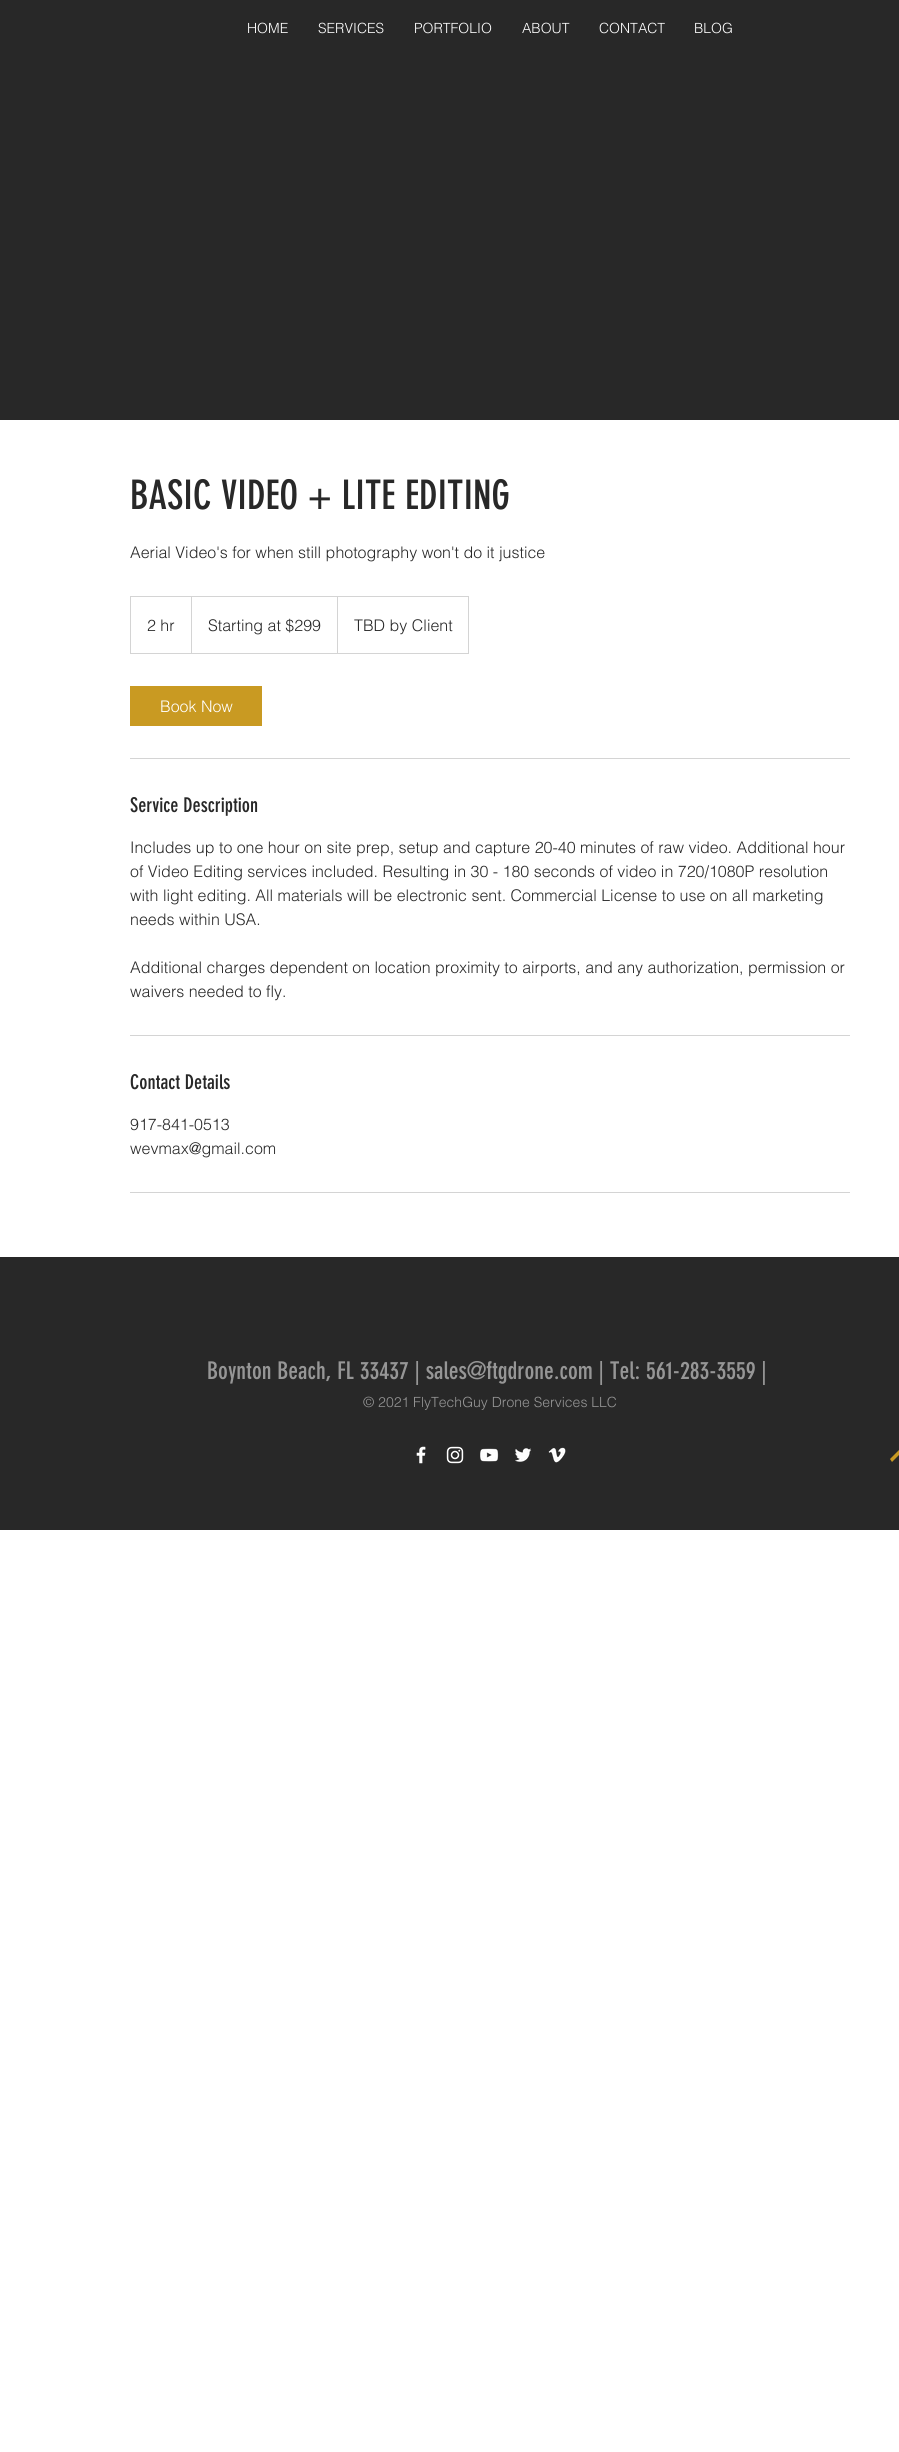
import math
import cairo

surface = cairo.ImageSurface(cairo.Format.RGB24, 899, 2452)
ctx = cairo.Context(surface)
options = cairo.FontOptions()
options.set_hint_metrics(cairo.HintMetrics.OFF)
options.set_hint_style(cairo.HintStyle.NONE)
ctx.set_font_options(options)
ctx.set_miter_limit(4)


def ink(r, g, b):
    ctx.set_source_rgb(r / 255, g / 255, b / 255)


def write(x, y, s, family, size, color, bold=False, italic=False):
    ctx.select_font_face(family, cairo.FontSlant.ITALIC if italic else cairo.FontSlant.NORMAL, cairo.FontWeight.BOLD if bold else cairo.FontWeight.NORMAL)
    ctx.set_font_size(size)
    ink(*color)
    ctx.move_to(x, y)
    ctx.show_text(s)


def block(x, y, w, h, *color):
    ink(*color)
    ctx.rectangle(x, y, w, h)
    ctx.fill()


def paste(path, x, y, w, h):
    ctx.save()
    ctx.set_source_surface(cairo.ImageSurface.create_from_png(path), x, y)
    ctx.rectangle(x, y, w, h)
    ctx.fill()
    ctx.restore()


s1 = dict(family="helvetica Light", size=14, color=(255, 255, 255))
s2 = dict(family="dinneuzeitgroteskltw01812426", size=40, color=(40, 40, 40))
s3 = dict(family="helvetica Light", size=16, color=(40, 40, 40))
s4 = dict(family="helvetica Light", size=16, color=(255, 255, 255))
s5 = dict(family="dinneuzeitgroteskltw01812426", size=20, color=(40, 40, 40))
s6 = dict(family="dinneuzeitgroteskltw01812426", size=24, color=(150, 150, 150))
s7 = dict(family="helvetica Light", size=14, color=(150, 150, 150))

ink(255, 255, 255)
ctx.paint()
block(0, 0, 899, 420, 40, 40, 40)
write(247, 33, "HOME", **s1)
write(318, 33, "SERVICES", **s1)
write(414, 33, "PORTFOLIO", **s1)
write(522, 33, "ABOUT", **s1)
write(599, 33, "CONTACT", **s1)
write(694, 33, "BLOG", **s1)
write(130, 509, "BASIC VIDEO + LITE EDITING", **s2)
write(130, 558, "Aerial Video's for when still photography won't do it justice", **s3)
ctx.rectangle(130.5, 596.5, 338, 57)
ink(212, 212, 212)
ctx.set_line_width(1)
ctx.stroke()
write(147, 631, "2 hr", **s3)
ink(212, 212, 212)
ctx.new_path()
ctx.move_to(191, 653)
ctx.line_to(191, 596)
ctx.line_to(192, 597)
ctx.line_to(192, 653)
ctx.close_path()
ctx.fill()
write(208, 631, "Starting at $299", **s3)
ink(212, 212, 212)
ctx.new_path()
ctx.move_to(337, 653)
ctx.line_to(337, 596)
ctx.line_to(338, 597)
ctx.line_to(338, 653)
ctx.close_path()
ctx.fill()
write(354, 631, "TBD by Client", **s3)
block(130, 686, 132, 40, 201, 154, 34)
write(160, 712, "Book Now", **s4)
block(130, 758, 720, 1, 212, 212, 212)
write(130, 812, "Service Description", **s5)
write(130, 853, "Includes up to one hour on site prep, setup and capture 20-40 minutes of raw video. Additional hour", **s3)
write(130, 877, "of Video Editing services included. Resulting in 30 - 180 seconds of video in 720/1080P resolution", **s3)
write(130, 901, "with light editing. All materials will be electronic sent. Commercial License to use on all marketing", **s3)
write(130, 925, "needs within USA.", **s3)
write(130, 973, "Additional charges dependent on location proximity to airports, and any authorization, permission or", **s3)
write(130, 997, "waivers needed to fly.", **s3)
block(130, 1035, 720, 1, 212, 212, 212)
write(130, 1089, "Contact Details", **s5)
write(130, 1130, "917-841-0513", **s3)
write(130, 1154, "wevmax@gmail.com", **s3)
block(130, 1192, 720, 1, 212, 212, 212)
block(0, 1257, 899, 273, 40, 40, 40)
write(207, 1379, "Boynton Beach, FL 33437 | sales@ftgdrone.com | Tel: 561-283-3559 |", **s6)
write(363, 1407, "© 2021 FlyTechGuy Drone Services LLC", **s7)
paste("pic1.png", 416, 1446, 10, 18)
paste("pic2.png", 446, 1446, 18, 18)
paste("pic3.png", 480, 1448, 19, 14)
paste("pic4.png", 515, 1448, 17, 14)
paste("pic5.png", 548, 1447, 18, 16)
ink(201, 154, 34)
ctx.new_path()
ctx.move_to(890, 1459)
ctx.line_to(892, 1462)
ctx.line_to(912, 1442)
ctx.line_to(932, 1462)
ctx.line_to(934, 1459)
ctx.line_to(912, 1437)
ctx.close_path()
ctx.fill()
surface.write_to_png("screenshot.png")
